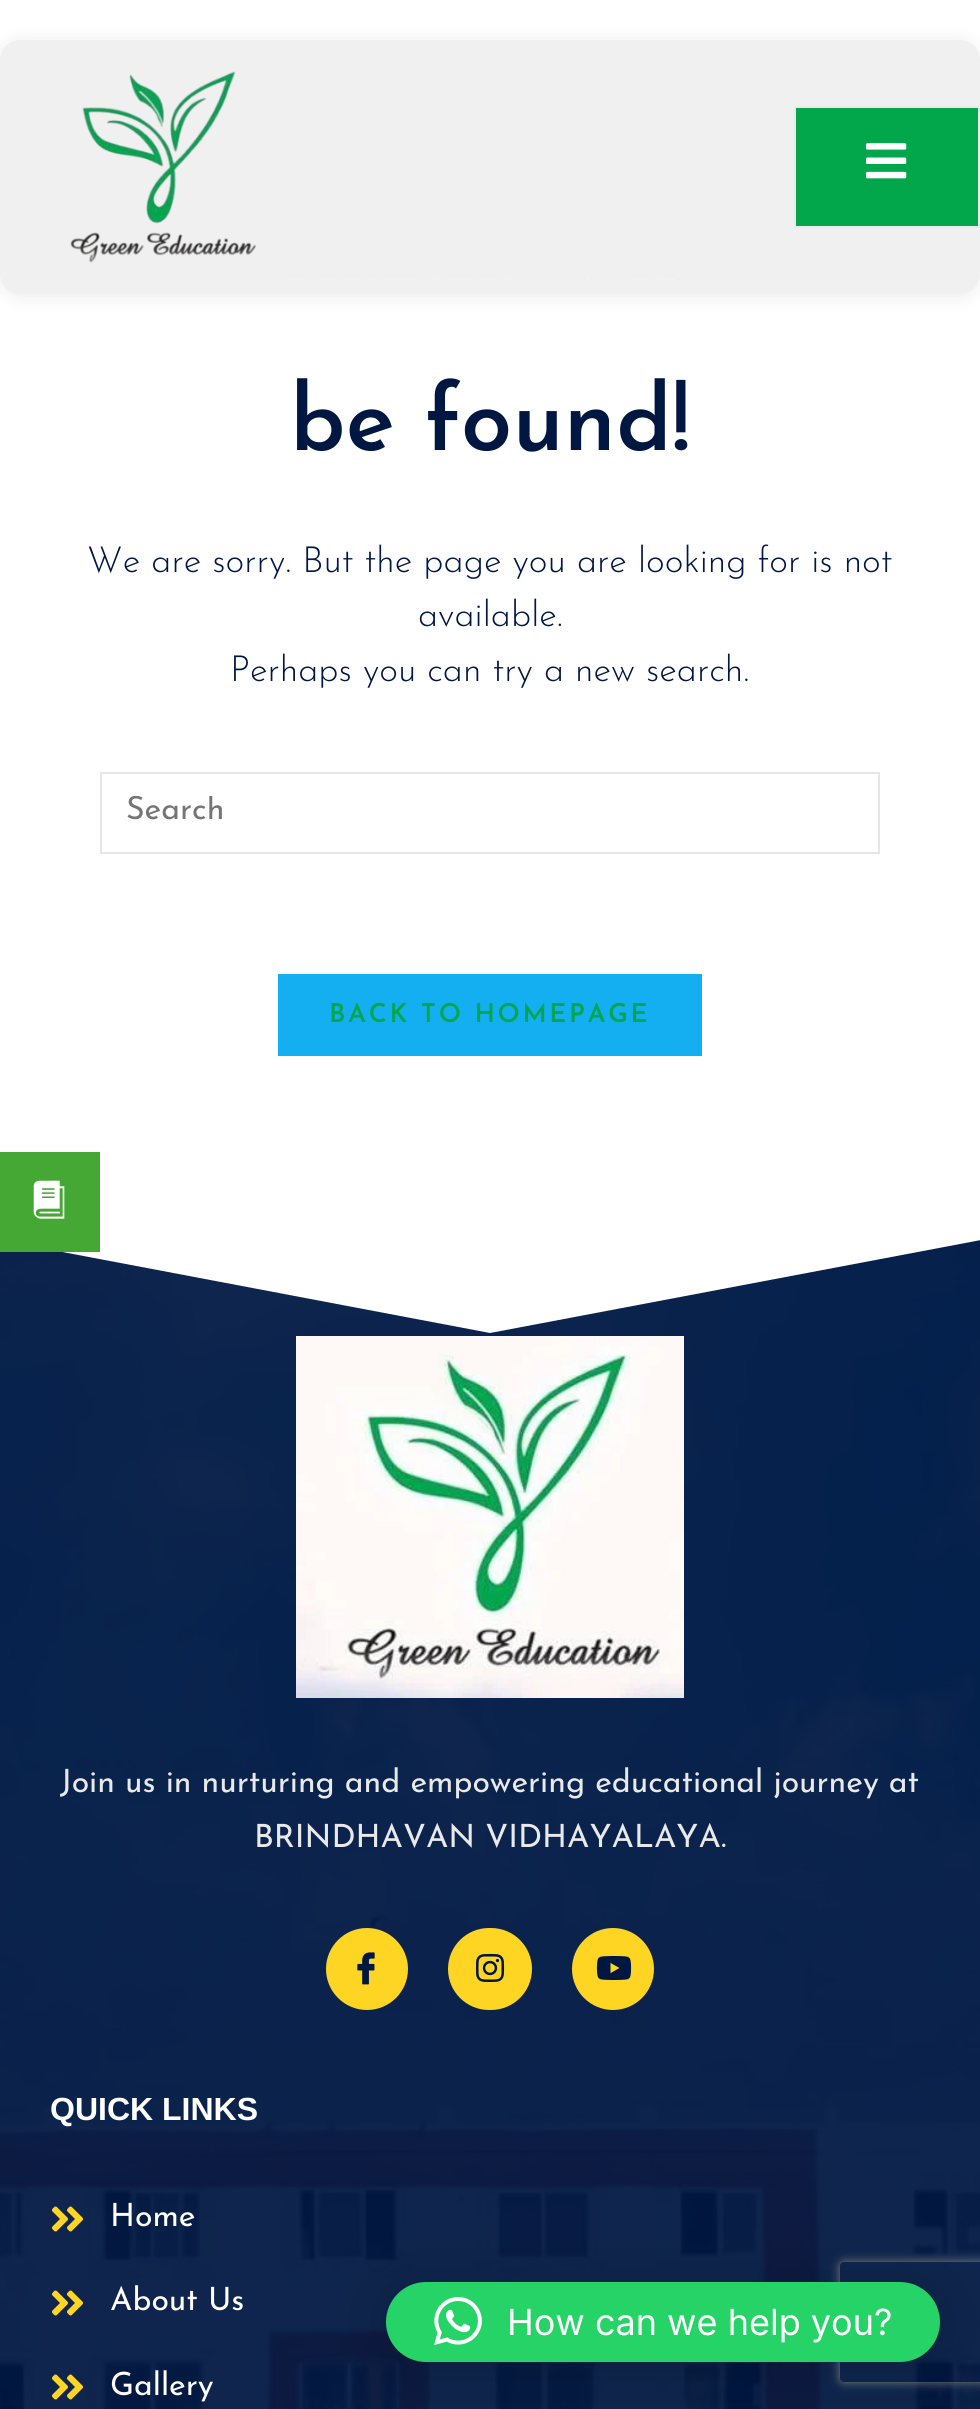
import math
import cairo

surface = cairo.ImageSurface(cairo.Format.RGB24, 980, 2409)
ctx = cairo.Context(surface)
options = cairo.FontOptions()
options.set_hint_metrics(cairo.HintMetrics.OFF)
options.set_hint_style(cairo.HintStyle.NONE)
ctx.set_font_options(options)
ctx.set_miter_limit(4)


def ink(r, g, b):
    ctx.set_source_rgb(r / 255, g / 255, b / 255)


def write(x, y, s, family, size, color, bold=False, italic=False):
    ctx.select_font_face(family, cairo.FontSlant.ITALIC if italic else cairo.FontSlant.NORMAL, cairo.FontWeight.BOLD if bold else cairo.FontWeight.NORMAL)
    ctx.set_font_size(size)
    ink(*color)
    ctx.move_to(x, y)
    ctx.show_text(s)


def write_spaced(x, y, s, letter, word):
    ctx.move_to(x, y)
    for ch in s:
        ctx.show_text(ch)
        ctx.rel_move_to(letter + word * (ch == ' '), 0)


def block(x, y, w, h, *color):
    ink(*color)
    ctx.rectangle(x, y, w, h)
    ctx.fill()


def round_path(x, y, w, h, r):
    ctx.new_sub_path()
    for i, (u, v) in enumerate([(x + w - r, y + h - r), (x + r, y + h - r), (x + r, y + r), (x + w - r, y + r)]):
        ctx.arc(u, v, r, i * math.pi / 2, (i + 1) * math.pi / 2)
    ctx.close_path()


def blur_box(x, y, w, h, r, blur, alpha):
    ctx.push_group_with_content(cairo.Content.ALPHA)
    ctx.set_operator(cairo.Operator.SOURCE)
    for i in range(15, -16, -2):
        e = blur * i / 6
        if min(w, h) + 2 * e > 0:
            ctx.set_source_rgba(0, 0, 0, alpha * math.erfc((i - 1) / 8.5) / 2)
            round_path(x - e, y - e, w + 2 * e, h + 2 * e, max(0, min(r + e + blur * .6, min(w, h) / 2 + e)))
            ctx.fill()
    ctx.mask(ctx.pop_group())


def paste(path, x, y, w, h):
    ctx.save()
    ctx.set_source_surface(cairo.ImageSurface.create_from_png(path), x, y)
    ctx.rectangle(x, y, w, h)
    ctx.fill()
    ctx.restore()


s1 = dict(family="Josefin Sans SemiBold", size=92, color=(0, 23, 66))
s2 = dict(family="Josefin Sans Light", size=36, color=(0, 23, 66))
s3 = dict(family="Josefin Sans", size=32, color=(117, 117, 117))
s4 = dict(family="Josefin Sans", size=32, color=(233, 233, 233))
s5 = dict(family="Liberation Sans", size=32, color=(255, 255, 255), bold=True)
s6 = dict(family="Josefin Sans", size=32, color=(255, 255, 255))
s7 = dict(family="Inter", size=36, color=(255, 255, 255))

ink(255, 255, 255)
ctx.paint()
block(0, 1240, 980, 1169, 0, 23, 66)
paste("pic5.png", 0, 1240, 980, 1169)
ink(255, 255, 255)
ctx.new_path()
ctx.move_to(490, 1333)
ctx.line_to(-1, 1240)
ctx.line_to(-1, 1234)
ctx.line_to(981, 1234)
ctx.line_to(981, 1240)
ctx.close_path()
ctx.fill()
block(0, 1152, 100, 100, 69, 168, 52)
paste("pic1.png", 33, 1180, 32, 39)
ctx.save()
ctx.set_fill_rule(cairo.FillRule.EVEN_ODD)
ctx.new_path()
ctx.move_to(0, 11)
ctx.line_to(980, 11)
ctx.line_to(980, 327)
ctx.line_to(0, 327)
ctx.close_path()
ctx.move_to(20, 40)
ctx.line_to(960, 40)
ctx.curve_to(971, 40, 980, 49, 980, 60)
ctx.line_to(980, 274)
ctx.curve_to(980, 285, 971, 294, 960, 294)
ctx.line_to(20, 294)
ctx.curve_to(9, 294, 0, 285, 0, 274)
ctx.line_to(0, 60)
ctx.curve_to(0, 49, 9, 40, 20, 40)
ctx.close_path()
ctx.clip()
ink(0, 0, 0)
blur_box(0, 42, 980, 254, 20, 10, 0.08)
ctx.restore()
ctx.set_source_rgba(0.424, 0.424, 0.424, 0.1)
round_path(0, 40, 980, 254, 20)
ctx.fill()
paste("pic2.png", 286, 279, 393, 1)
paste("pic3.png", 70, 71, 186, 192)
ink(2, 167, 75)
ctx.rectangle(795, 107, 184, 120)
ctx.fill_preserve()
ink(234, 234, 235)
ctx.stroke()
paste("pic4.png", 866, 143, 41, 36)
write(290, 450, "be found!", **s1)
write(87, 572, "We are sorry. But the page you are looking for is not", **s2)
write(418, 626, "available.", **s2)
write(230, 681, "Perhaps you can try a new search.", **s2)
ctx.rectangle(101, 773, 778, 80)
ink(230, 230, 230)
ctx.stroke()
ctx.save()
ctx.rectangle(126, 796, 728, 32)
ctx.clip()
write(126, 819, "Search", **s3)
ctx.restore()
block(278, 974, 424, 82, 19, 175, 240)
ctx.select_font_face("Josefin Sans SemiBold")
ctx.set_font_size(26)
ink(2, 167, 75)
write_spaced(329, 1022, "BACK TO HOMEPAGE", 2.6, 0)
paste("pic6.png", 296, 1336, 388, 362)
write(60, 1792, "Join us in nurturing and empowering educational journey at", **s4)
write(254, 1847, "BRINDHAVAN VIDHAYALAYA.", **s4)
ink(255, 213, 35)
ctx.new_path()
ctx.arc(367, 1969, 41, 0, 2 * math.pi)
ctx.fill()
paste("pic7.png", 357, 1952, 18, 33)
round_path(448, 1928, 84, 82, 41)
ctx.fill()
paste("pic8.png", 476, 1953, 29, 29)
ctx.arc(613, 1969, 41, 0, 2 * math.pi)
ctx.fill()
paste("pic9.png", 596, 1956, 36, 24)
write(50, 2120, "QUICK LINKS", **s5)
paste("pic10.png", 52, 2206, 31, 26)
write(110, 2226, "Home", **s6)
paste("pic10.png", 52, 2290, 31, 26)
write(110, 2310, "About Us", **s6)
paste("pic10.png", 52, 2374, 31, 26)
write(110, 2395, "Gallery", **s6)
ink(0, 0, 0)
blur_box(386, 2286, 554, 80, 40, 32, 0.16)
ctx.save()
ctx.set_fill_rule(cairo.FillRule.EVEN_ODD)
ctx.new_path()
ctx.move_to(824, 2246)
ctx.line_to(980, 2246)
ctx.line_to(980, 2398)
ctx.line_to(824, 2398)
ctx.close_path()
ctx.move_to(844, 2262)
ctx.line_to(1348, 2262)
ctx.curve_to(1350, 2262, 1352, 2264, 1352, 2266)
ctx.line_to(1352, 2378)
ctx.curve_to(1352, 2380, 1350, 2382, 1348, 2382)
ctx.line_to(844, 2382)
ctx.curve_to(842, 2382, 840, 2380, 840, 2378)
ctx.line_to(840, 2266)
ctx.curve_to(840, 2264, 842, 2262, 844, 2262)
ctx.close_path()
ctx.clip()
ink(128, 128, 128)
blur_box(840, 2262, 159, 120, 4, 5, 1)
ctx.restore()
ink(37, 211, 102)
round_path(386, 2282, 554, 80, 40)
ctx.fill()
paste("pic11.png", 434, 2297, 48, 48)
write(507, 2335, "How can we help you?", **s7)
surface.write_to_png("screenshot.png")
